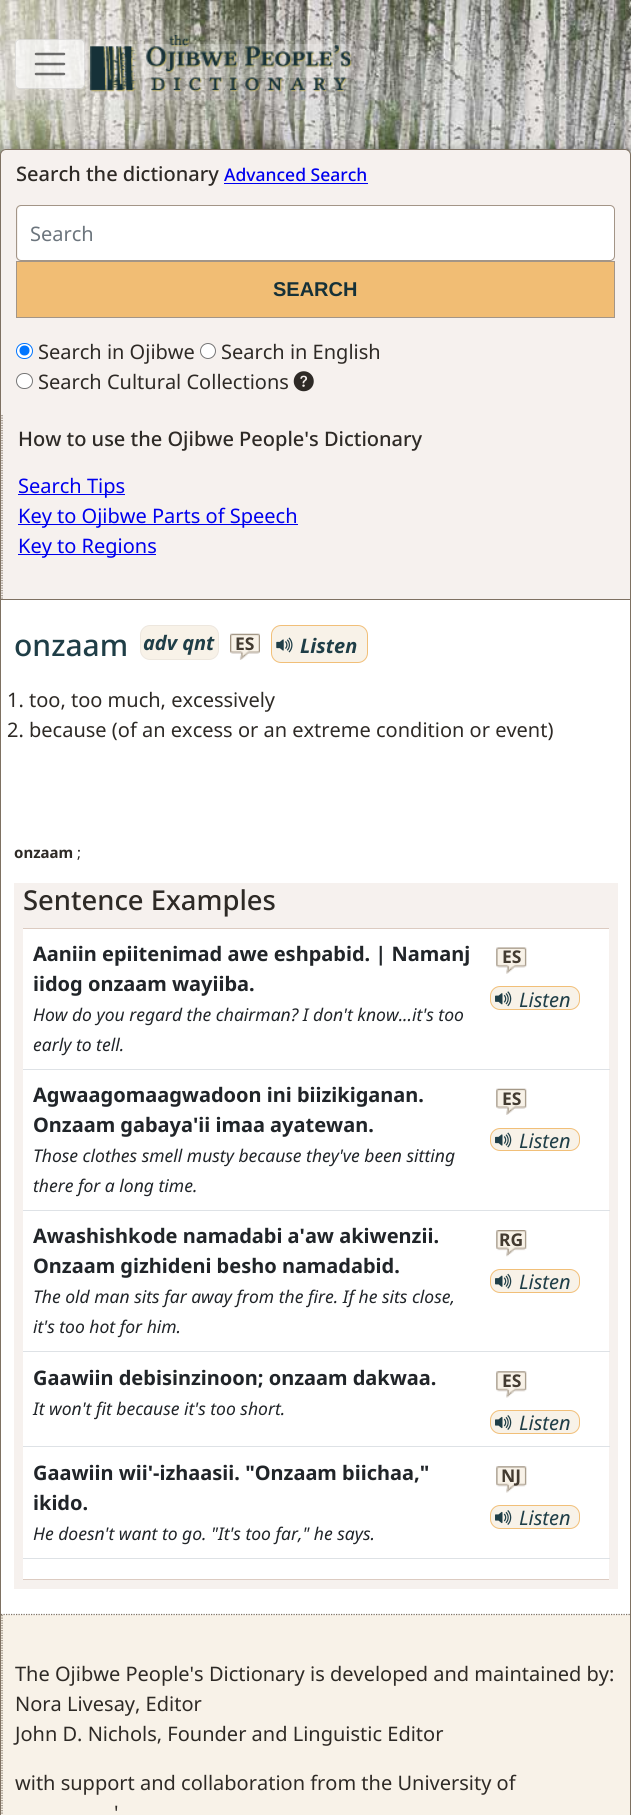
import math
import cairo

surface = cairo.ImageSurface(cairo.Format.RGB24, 631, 1815)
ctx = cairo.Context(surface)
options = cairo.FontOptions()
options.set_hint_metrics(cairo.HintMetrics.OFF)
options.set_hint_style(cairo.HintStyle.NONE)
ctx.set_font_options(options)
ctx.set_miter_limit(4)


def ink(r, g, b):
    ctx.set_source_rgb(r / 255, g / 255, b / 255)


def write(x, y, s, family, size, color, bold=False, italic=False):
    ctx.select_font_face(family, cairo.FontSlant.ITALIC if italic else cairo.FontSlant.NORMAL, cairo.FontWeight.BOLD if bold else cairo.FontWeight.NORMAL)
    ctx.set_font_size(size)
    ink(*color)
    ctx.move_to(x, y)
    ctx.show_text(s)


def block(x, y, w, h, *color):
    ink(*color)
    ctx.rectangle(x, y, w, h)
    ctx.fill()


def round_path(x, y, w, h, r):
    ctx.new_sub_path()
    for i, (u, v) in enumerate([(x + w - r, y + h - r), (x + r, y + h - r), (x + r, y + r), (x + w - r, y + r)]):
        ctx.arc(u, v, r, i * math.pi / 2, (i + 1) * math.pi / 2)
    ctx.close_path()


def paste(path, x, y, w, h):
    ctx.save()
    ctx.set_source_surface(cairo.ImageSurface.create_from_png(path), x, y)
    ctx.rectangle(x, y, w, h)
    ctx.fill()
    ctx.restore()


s1 = dict(family="Noto Sans Medium", size=20, color=(46, 42, 38))
s2 = dict(family="Noto Sans Medium", size=17.5, color=(0, 0, 238))
s3 = dict(family="Noto Sans", size=20, color=(108, 117, 125))
s4 = dict(family="Liberation Sans", size=20, color=(22, 49, 56), bold=True)
s5 = dict(family="Noto Sans", size=20, color=(46, 42, 38))
s6 = dict(family="Noto Sans", size=20, color=(0, 0, 238))
s7 = dict(family="Noto Sans Medium", size=30, color=(31, 62, 71))
s8 = dict(family="Noto Sans", size=20, color=(31, 62, 71), bold=True, italic=True)
s9 = dict(family="Noto Sans", size=17.5, color=(67, 59, 49), bold=True)
s10 = dict(family="Noto Sans", size=15, color=(46, 42, 38), bold=True)
s11 = dict(family="Noto Sans", size=15, color=(46, 42, 38))
s12 = dict(family="Noto Sans Medium", size=27.4, color=(46, 42, 38))
s13 = dict(family="Noto Sans", size=20, color=(33, 37, 41), bold=True)
s14 = dict(family="Noto Sans", size=17.5, color=(33, 37, 41), italic=True)
s15 = dict(family="Noto Sans", size=20, color=(31, 62, 71), italic=True)

ink(255, 255, 255)
ctx.paint()
paste("pic1.png", 0, 0, 631, 155)
ctx.set_source_rgba(1, 1, 1, 0.7)
round_path(15, 39, 70, 50, 5)
ctx.fill()
round_path(15.5, 39.5, 69, 49, 4.5)
ctx.set_source_rgba(0, 0, 0, 0.1)
ctx.set_line_width(1)
ctx.stroke()
ctx.new_path()
ctx.move_to(36, 54)
ctx.line_to(64, 54)
ctx.move_to(36, 64)
ctx.line_to(64, 64)
ctx.move_to(36, 74)
ctx.line_to(64, 74)
ctx.set_source_rgba(0, 0, 0, 0.55)
ctx.set_line_width(2.5)
ctx.set_line_cap(cairo.LineCap.ROUND)
ctx.stroke()
ctx.set_source_rgba(1, 1, 1, 0.2)
ctx.rectangle(90, 44, 261, 34)
ctx.fill()
paste("pic2.png", 90, 35, 262, 57)
ink(246, 241, 238)
ctx.new_path()
ctx.move_to(6, 149.5)
ctx.line_to(625, 149.5)
ctx.curve_to(628, 149.5, 630.5, 152, 630.5, 155)
ctx.line_to(630.5, 599.5)
ctx.line_to(0.5, 599.5)
ctx.line_to(0.5, 155)
ctx.curve_to(0.5, 152, 3, 149.5, 6, 149.5)
ctx.close_path()
ctx.fill_preserve()
ink(126, 113, 98)
ctx.set_line_width(1)
ctx.set_line_cap(cairo.LineCap.BUTT)
ctx.stroke()
write(16, 181, "Search the dictionary", **s1)
write(224, 181, "Advanced Search", **s2)
block(224, 183, 144, 1, 0, 0, 238)
ink(255, 255, 255)
round_path(18, 206, 596, 54, 4)
ctx.fill()
round_path(16.5, 205.5, 598, 55, 4.5)
ink(163, 149, 135)
ctx.stroke()
write(30, 241, "Search", **s3)
ink(241, 189, 116)
ctx.rectangle(16.5, 261.5, 598, 56)
ctx.fill_preserve()
ink(163, 149, 135)
ctx.stroke()
write(273, 296, "SEARCH", **s4)
ink(255, 255, 255)
round_path(16.5, 343.5, 16, 15, 7.5)
ctx.fill_preserve()
ink(0, 117, 255)
ctx.stroke()
ctx.arc(24.5, 350.5, 5, 0, 2 * math.pi)
ctx.fill()
write(38, 359, "Search in Ojibwe", **s5)
ink(255, 255, 255)
ctx.new_path()
ctx.arc(208, 351, 7.5, 0, 2 * math.pi)
ctx.fill_preserve()
ink(118, 118, 118)
ctx.stroke()
write(221, 359, "Search in English", **s5)
ink(255, 255, 255)
round_path(16.5, 373.5, 16, 15, 7.5)
ctx.fill_preserve()
ink(118, 118, 118)
ctx.stroke()
write(38, 389, "Search Cultural Collections", **s5)
paste("pic3.png", 293, 371, 21, 21)
ctx.new_path()
ctx.move_to(2, 415)
ctx.line_to(2, 599)
ink(126, 113, 98)
ctx.set_line_width(1.2)
ctx.set_dash([1.25, 1.25])
ctx.stroke()
write(18, 446, "How to use the Ojibwe People's Dictionary", **s1)
block(18, 494, 107, 1, 0, 0, 238)
write(18, 493, "Search Tips", **s6)
block(18, 524, 280, 1, 0, 0, 238)
write(18, 523, "Key to Ojibwe Parts of Speech", **s6)
block(18, 554, 138, 1, 0, 0, 238)
write(18, 553, "Key to Regions", **s6)
block(1, 1615, 629, 200, 248, 242, 232)
ink(126, 113, 98)
ctx.set_fill_rule(cairo.FillRule.EVEN_ODD)
ctx.new_path()
ctx.move_to(0, 600)
ctx.line_to(631, 600)
ctx.line_to(631, 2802)
ctx.curve_to(631, 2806, 628, 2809, 625, 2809)
ctx.line_to(6, 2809)
ctx.curve_to(3, 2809, 0, 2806, 0, 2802)
ctx.close_path()
ctx.move_to(1, 600)
ctx.line_to(630, 600)
ctx.line_to(630, 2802)
ctx.curve_to(630, 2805, 628, 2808, 625, 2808)
ctx.line_to(6, 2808)
ctx.curve_to(3, 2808, 1, 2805, 1, 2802)
ctx.close_path()
ctx.fill()
ctx.new_path()
ctx.move_to(1, 1614.5)
ctx.line_to(630, 1614.5)
ctx.stroke()
write(14, 656, "onzaam", **s7)
ink(248, 242, 232)
round_path(140.5, 625.5, 78, 34, 9.5)
ctx.fill_preserve()
ink(237, 231, 222)
ctx.set_line_width(1)
ctx.set_dash([])
ctx.stroke()
write(143, 650, "adv qnt", **s8)
paste("pic4.png", 230, 633, 30, 27)
write(235, 650, "ES", **s9)
ink(248, 242, 232)
round_path(271.5, 625.5, 96, 37, 9.5)
ctx.fill_preserve()
ink(241, 191, 120)
ctx.stroke()
paste("pic5.png", 276, 637, 17, 16)
write(300, 653, "Listen", **s8)
write(7, 707, "1. too, too much, excessively", **s5)
write(7, 737, "2. because (of an excess or an extreme condition or event)", **s5)
write(14, 858, "onzaam", **s10)
write(77, 858, ";", **s11)
block(14, 883, 604, 706, 246, 241, 238)
write(23, 910, "Sentence Examples", **s12)
block(23, 929, 586, 650, 255, 255, 255)
block(23, 928, 586, 1, 220, 203, 193)
block(23, 1579, 586, 1, 220, 203, 193)
block(23, 1558, 587, 1, 222, 226, 230)
write(33, 961, "Aaniin epiitenimad awe eshpabid. | Namanj", **s13)
write(33, 991, "iidog onzaam wayiiba.", **s13)
write(33, 1021, "How do you regard the chairman? I don't know...it's too", **s14)
write(33, 1051, "early to tell.", **s14)
block(23, 1069, 587, 1, 222, 226, 230)
paste("pic6.png", 496, 947, 31, 27)
write(502, 963, "ES", **s9)
ink(248, 242, 232)
round_path(490.5, 986.5, 89, 23, 9.5)
ctx.fill_preserve()
ink(241, 191, 120)
ctx.stroke()
paste("pic7.png", 495, 991, 17, 16)
write(519, 1007, "Listen", **s15)
write(33, 1102, "Agwaagomaagwadoon ini biizikiganan.", **s13)
write(33, 1132, "Onzaam gabaya'ii imaa ayatewan.", **s13)
write(33, 1162, "Those clothes smell musty because they've been sitting", **s14)
write(33, 1192, "there for a long time.", **s14)
block(23, 1210, 587, 1, 222, 226, 230)
paste("pic8.png", 496, 1088, 31, 27)
write(502, 1105, "ES", **s9)
ink(248, 242, 232)
round_path(490.5, 1128.5, 89, 22, 9.5)
ctx.fill_preserve()
ink(241, 191, 120)
ctx.stroke()
paste("pic9.png", 495, 1132, 17, 16)
write(519, 1148, "Listen", **s15)
write(33, 1243, "Awashishkode namadabi a'aw akiwenzii.", **s13)
write(33, 1273, "Onzaam gizhideni besho namadabid.", **s13)
write(33, 1303, "The old man sits far away from the fire. If he sits close,", **s14)
write(33, 1333, "it's too hot for him.", **s14)
block(23, 1351, 587, 1, 222, 226, 230)
paste("pic10.png", 496, 1230, 31, 27)
write(499, 1246, "RG", **s9)
ink(248, 242, 232)
round_path(490.5, 1269.5, 89, 23, 9.5)
ctx.fill_preserve()
ink(241, 191, 120)
ctx.stroke()
paste("pic11.png", 495, 1273, 17, 16)
write(519, 1289, "Listen", **s15)
write(33, 1385, "Gaawiin debisinzinoon; onzaam dakwaa.", **s13)
write(33, 1415, "It won't fit because it's too short.", **s14)
block(23, 1446, 587, 1, 222, 226, 230)
paste("pic12.png", 496, 1371, 31, 27)
write(502, 1387, "ES", **s9)
ink(248, 242, 232)
round_path(490.5, 1410.5, 89, 23, 9.5)
ctx.fill_preserve()
ink(241, 191, 120)
ctx.stroke()
paste("pic13.png", 495, 1415, 17, 15)
write(519, 1430, "Listen", **s15)
write(33, 1480, "Gaawiin wii'-izhaasii. \"Onzaam biichaa,\"", **s13)
write(33, 1510, "ikido.", **s13)
write(33, 1540, "He doesn't want to go. \"It's too far,\" he says.", **s14)
paste("pic12.png", 496, 1466, 31, 27)
write(501, 1482, "NJ", **s9)
ink(248, 242, 232)
round_path(490.5, 1505.5, 89, 23, 9.5)
ctx.fill_preserve()
ink(241, 191, 120)
ctx.stroke()
paste("pic13.png", 495, 1510, 17, 15)
write(519, 1525, "Listen", **s15)
ctx.new_path()
ctx.move_to(2, 1615)
ctx.line_to(2, 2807.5)
ink(126, 113, 98)
ctx.set_line_width(1.2)
ctx.set_dash([1.25, 1.25])
ctx.stroke()
write(15, 1681, "The Ojibwe People's Dictionary is developed and maintained by:", **s5)
write(15, 1711, "Nora Livesay, Editor", **s5)
write(15, 1741, "John D. Nichols, Founder and Linguistic Editor", **s5)
write(15, 1790, "with support and collaboration from the University of", **s5)
write(114, 1820, "'", **s5)
surface.write_to_png("screenshot.png")
